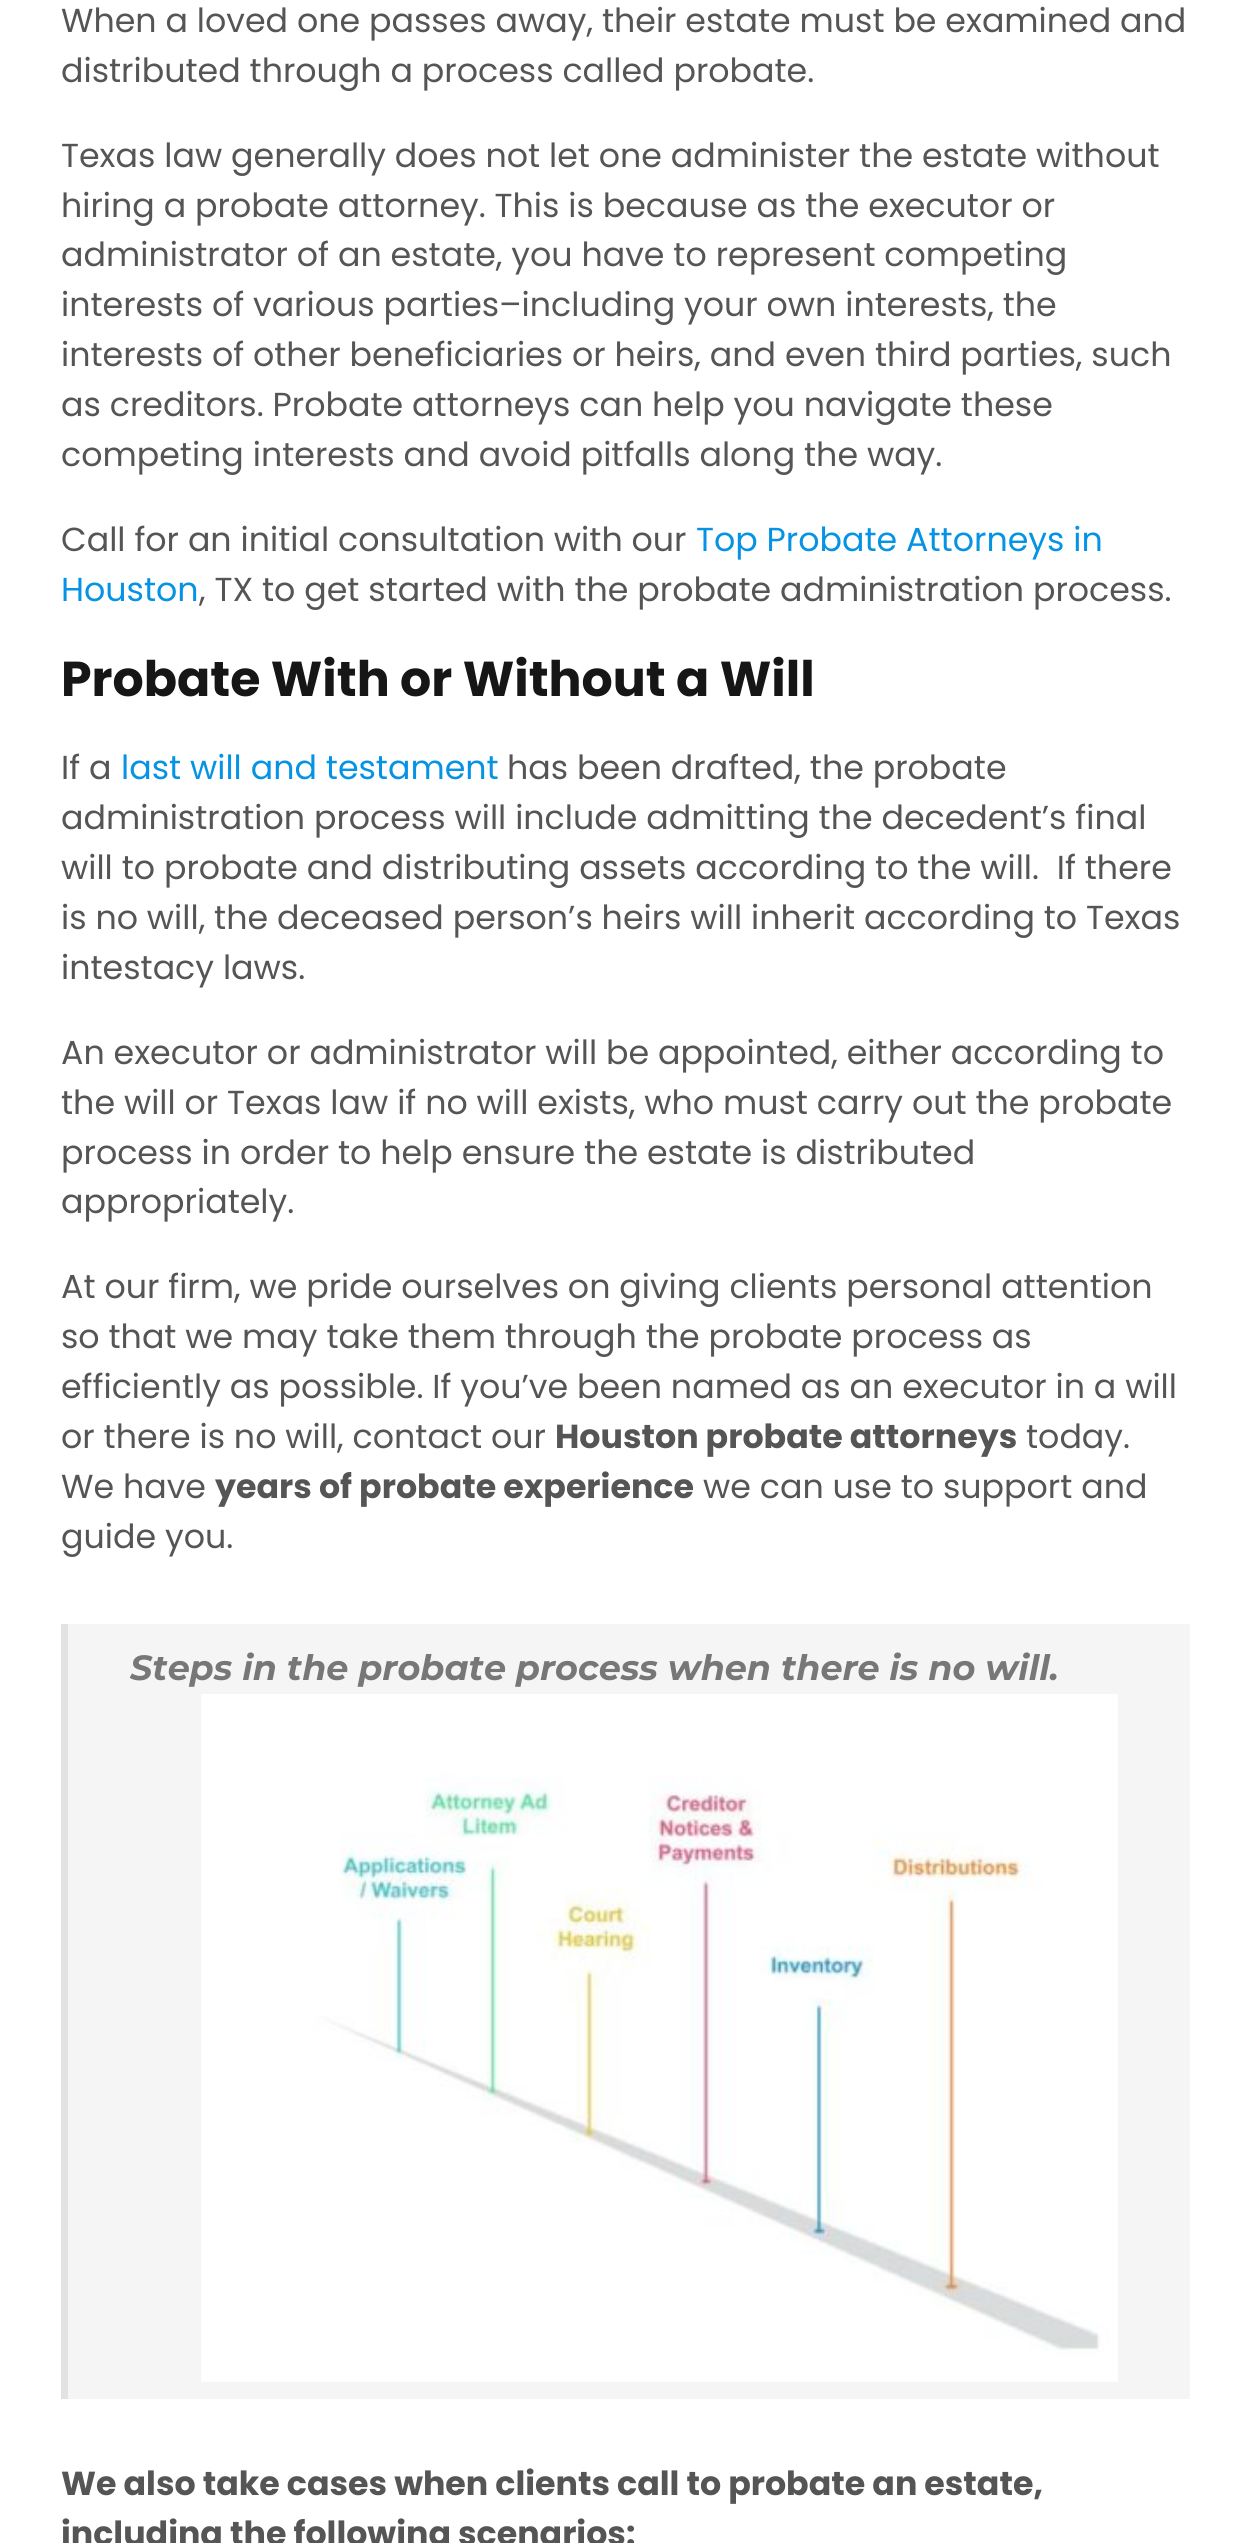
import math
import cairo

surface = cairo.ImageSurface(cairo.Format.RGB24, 1251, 2543)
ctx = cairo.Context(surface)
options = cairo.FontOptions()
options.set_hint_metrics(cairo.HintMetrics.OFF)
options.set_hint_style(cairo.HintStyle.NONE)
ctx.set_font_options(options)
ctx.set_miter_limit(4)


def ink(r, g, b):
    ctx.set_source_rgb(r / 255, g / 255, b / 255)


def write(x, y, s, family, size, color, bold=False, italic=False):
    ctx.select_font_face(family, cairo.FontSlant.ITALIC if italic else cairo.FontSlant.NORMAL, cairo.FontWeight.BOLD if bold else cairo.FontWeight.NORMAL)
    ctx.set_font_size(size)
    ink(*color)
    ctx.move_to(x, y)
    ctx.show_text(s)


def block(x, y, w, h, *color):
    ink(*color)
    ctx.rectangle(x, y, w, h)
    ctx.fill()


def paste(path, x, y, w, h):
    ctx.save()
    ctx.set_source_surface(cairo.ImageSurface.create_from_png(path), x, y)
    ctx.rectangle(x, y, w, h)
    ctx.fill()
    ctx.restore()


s1 = dict(family="Poppins", size=33.25, color=(85, 85, 85))
s2 = dict(family="Poppins", size=33.25, color=(6, 147, 227))
s3 = dict(family="Poppins", size=49, color=(22, 22, 22), bold=True)
s4 = dict(family="Poppins", size=33.25, color=(85, 85, 85), bold=True)
s5 = dict(family="Montserrat", size=35, color=(119, 119, 119), bold=True, italic=True)

ink(255, 255, 255)
ctx.paint()
write(61, 32, "When a loved one passes away, their estate must be examined and", **s1)
write(61, 82, "distributed through a process called probate.", **s1)
write(61, 167, "Texas law generally does not let one administer the estate without", **s1)
write(61, 217, "hiring a probate attorney. This is because as the executor or", **s1)
write(61, 266, "administrator of an estate, you have to represent competing", **s1)
write(61, 316, "interests of various parties–including your own interests, the", **s1)
write(61, 366, "interests of other beneficiaries or heirs, and even third parties, such", **s1)
write(61, 416, "as creditors. Probate attorneys can help you navigate these", **s1)
write(61, 466, "competing interests and avoid pitfalls along the way.", **s1)
write(61, 551, "Call for an initial consultation with our", **s1)
write(696, 551, "Top Probate Attorneys in", **s2)
write(61, 601, "Houston", **s2)
write(199, 601, ", TX to get started with the probate administration process.", **s1)
write(61, 696, "Probate With or Without a Will", **s3)
write(61, 779, "If a", **s1)
write(121, 779, "last will and testament", **s2)
write(507, 779, "has been drafted, the probate", **s1)
write(61, 829, "administration process will include admitting the decedent’s final", **s1)
write(61, 879, "will to probate and distributing assets according to the will.  If there", **s1)
write(61, 929, "is no will, the deceased person’s heirs will inherit according to Texas", **s1)
write(61, 979, "intestacy laws.", **s1)
write(61, 1064, "An executor or administrator will be appointed, either according to", **s1)
write(61, 1114, "the will or Texas law if no will exists, who must carry out the probate", **s1)
write(61, 1164, "process in order to help ensure the estate is distributed", **s1)
write(61, 1213, "appropriately.", **s1)
write(61, 1298, "At our firm, we pride ourselves on giving clients personal attention", **s1)
write(61, 1348, "so that we may take them through the probate process as", **s1)
write(61, 1398, "efficiently as possible. If you’ve been named as an executor in a will", **s1)
write(61, 1448, "or there is no will, contact our", **s1)
write(555, 1448, "Houston probate attorneys", **s4)
write(1026, 1448, "today.", **s1)
write(61, 1498, "We have", **s1)
write(215, 1498, "years of probate experience", **s4)
write(703, 1498, "we can use to support and", **s1)
write(61, 1548, "guide you.", **s1)
block(68, 1624, 1122, 775, 245, 245, 245)
block(61, 1624, 7, 775, 226, 226, 226)
write(130, 1680, "Steps in the probate process when there is no will.", **s5)
paste("pic1.png", 201, 1694, 917, 688)
write(61, 2495, "We also take cases when clients call to probate an estate,", **s4)
write(61, 2545, "including the following scenarios:", **s4)
surface.write_to_png("screenshot.png")
